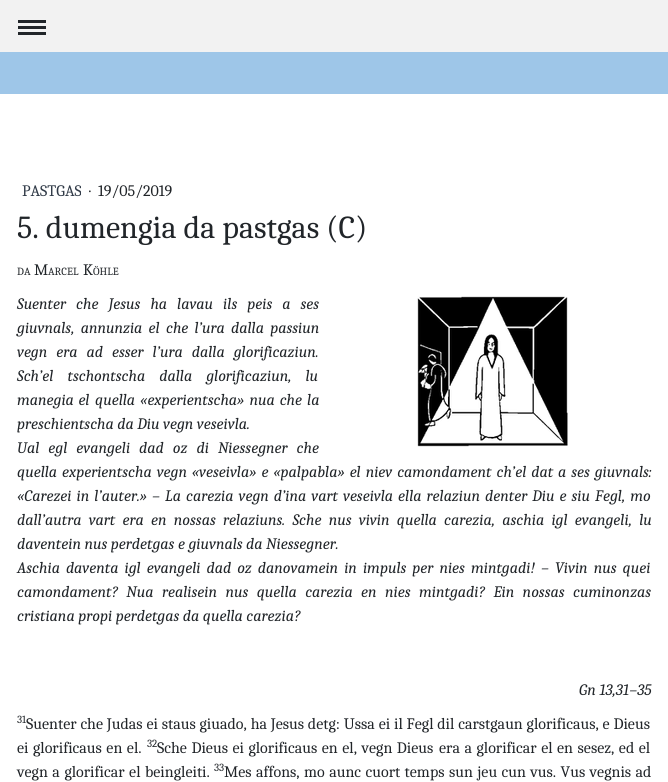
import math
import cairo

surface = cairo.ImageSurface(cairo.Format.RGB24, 668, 782)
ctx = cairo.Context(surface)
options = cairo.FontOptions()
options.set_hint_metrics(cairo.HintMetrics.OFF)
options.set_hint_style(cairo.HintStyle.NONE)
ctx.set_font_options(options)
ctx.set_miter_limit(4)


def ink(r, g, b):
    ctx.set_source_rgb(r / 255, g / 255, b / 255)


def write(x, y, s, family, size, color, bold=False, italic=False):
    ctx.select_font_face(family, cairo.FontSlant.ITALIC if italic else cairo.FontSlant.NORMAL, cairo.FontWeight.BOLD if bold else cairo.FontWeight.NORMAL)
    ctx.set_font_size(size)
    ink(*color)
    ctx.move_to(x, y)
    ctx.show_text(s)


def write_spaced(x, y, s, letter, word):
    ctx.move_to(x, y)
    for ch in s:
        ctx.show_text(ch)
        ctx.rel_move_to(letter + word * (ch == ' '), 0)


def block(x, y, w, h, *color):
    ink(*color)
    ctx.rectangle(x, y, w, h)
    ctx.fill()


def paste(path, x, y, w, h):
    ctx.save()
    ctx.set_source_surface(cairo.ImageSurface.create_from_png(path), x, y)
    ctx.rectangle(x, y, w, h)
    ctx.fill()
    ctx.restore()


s1 = dict(family="Caladea", size=16, color=(48, 58, 71))
s2 = dict(family="Caladea", size=16, color=(33, 37, 41))
s3 = dict(family="Caladea", size=32, color=(33, 37, 41))
s4 = dict(family="Caladea", size=11, color=(33, 37, 41))
s5 = dict(family="Caladea", size=16, color=(33, 37, 41), italic=True)

ink(255, 255, 255)
ctx.paint()
block(0, 0, 668, 52, 242, 242, 242)
block(18, 26, 28, 3, 33, 37, 41)
block(18, 20, 28, 3, 33, 37, 41)
block(18, 32, 28, 3, 33, 37, 41)
block(0, 52, 668, 42, 158, 198, 232)
write(22, 196, "PASTGAS", **s1)
write(89, 196, "·", **s2)
write(98, 196, "19/05/2019", **s2)
write(17, 238, "5. dumengia da pastgas (C)", **s3)
write(17, 275, "DA", **s4)
write(34, 275, "M", **s2)
write(48, 275, "ARCEL", **s4)
write(83, 275, "K", **s2)
write(93, 275, "ÖHLE", **s4)
paste("pic1.png", 417, 296, 151, 151)
ctx.select_font_face("Caladea", cairo.FontSlant.ITALIC)
ctx.set_font_size(16)
write_spaced(17, 309, "Suenter che Jesus ha lavau ils peis a ses", 0, 6.5)
write_spaced(17, 333, "giuvnals, annunzia el che l’ura dalla passiun", 0, 2.75)
write_spaced(17, 357, "vegn era ad esser l’ura dalla glorificaziun.", 0, 5.5)
write_spaced(17, 381, "Sch’el tschontscha dalla glorificaziun, lu", 0, 10.5)
write_spaced(17, 405, "manegia el", 0, 1)
write_spaced(95, 405, "quella «experientscha» nua che la", 0, 1.5)
write(17, 429, "preschientscha da Diu vegn veseivla.", **s5)
write_spaced(17, 453, "Ual egl evangeli dad oz di Niessegner che", 0, 5.5)
write_spaced(17, 477, "quella experientscha vegn «veseivla» e «palpabla» el niev camondament ch’el dat a ses giuvnals:", 0, 1.4)
write_spaced(17, 501, "«Carezei in l’auter.» – La carezia vegn d’ina vart", 0, 1.5)
write_spaced(343, 501, "veseivla ella relaziun denter Diu e siu Fegl, mo", 0, 1.5)
write_spaced(17, 525, "dall’autra vart era en nossas relaziuns. Sche nus vivin quella carezia, aschia igl evangeli, lu", 0, 3.75)
write(17, 549, "daventein nus perdetgas e giuvnals da Niessegner.", **s5)
write_spaced(17, 573, "Aschia daventa igl evangeli dad oz danovamein in impuls per nies mintgadi! – Vivin nus quei", 0, 2.5)
write_spaced(17, 597, "camondament? Nua realisein nus quella carezia en nies mintgadi? Ein nossas cuminonzas", 0, 4.9)
write(17, 621, "cristiana propi perdetgas da quella carezia?", **s5)
write(579, 695, "Gn 13,31–35", **s5)
write(17, 723, "31", **s4)
ctx.set_font_size(16)
write_spaced(26, 729, "Suenter che Judas ei staus giuado, ha Jesus detg: Ussa ei il Fegl dil carstgaun glorificaus, e Dieus", 0, 0.3)
write_spaced(17, 753, "ei glorificaus en el.", 0, 1)
write(147, 747, "32", **s4)
ctx.set_font_size(16)
write_spaced(157, 753, "Sche Dieus ei glorificaus en el, vegn Dieus", 0, 1)
write_spaced(439, 753, "era a glorificar el en sesez, ed el", 0, 1)
write_spaced(17, 777, "vegn a glorificar el beingleiti.", 0, 1)
write(214, 771, "33", **s4)
ctx.set_font_size(16)
write_spaced(224, 777, "Mes affons, mo aunc cuort temps sun jeu cun vus. Vus vegnis ad", 0, 0.9)
surface.write_to_png("screenshot.png")
